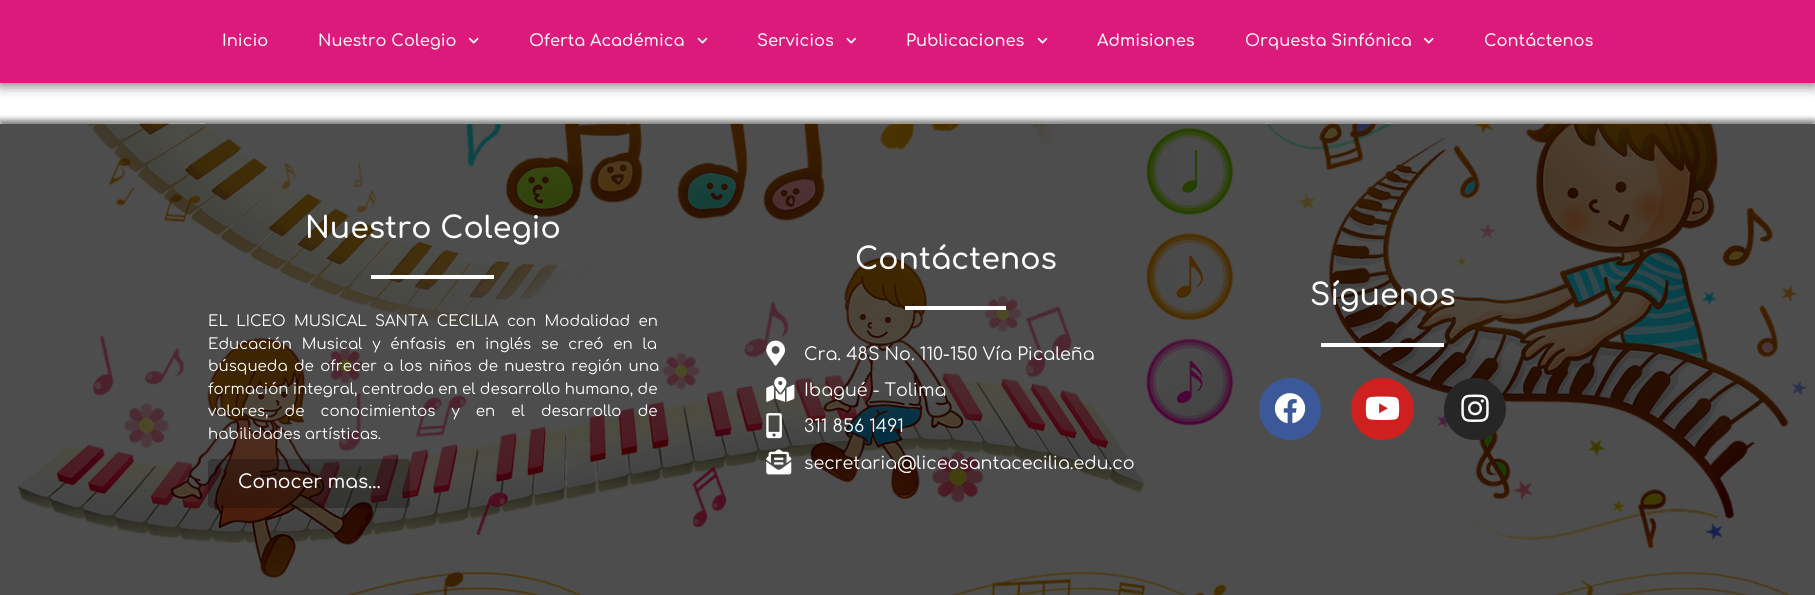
import math
import cairo

surface = cairo.ImageSurface(cairo.Format.RGB24, 1815, 595)
ctx = cairo.Context(surface)
options = cairo.FontOptions()
options.set_hint_metrics(cairo.HintMetrics.OFF)
options.set_hint_style(cairo.HintStyle.NONE)
ctx.set_font_options(options)
ctx.set_miter_limit(4)


def ink(r, g, b):
    ctx.set_source_rgb(r / 255, g / 255, b / 255)


def write(x, y, s, family, size, color, bold=False, italic=False):
    ctx.select_font_face(family, cairo.FontSlant.ITALIC if italic else cairo.FontSlant.NORMAL, cairo.FontWeight.BOLD if bold else cairo.FontWeight.NORMAL)
    ctx.set_font_size(size)
    ink(*color)
    ctx.move_to(x, y)
    ctx.show_text(s)


def write_spaced(x, y, s, letter, word):
    ctx.move_to(x, y)
    for ch in s:
        ctx.show_text(ch)
        ctx.rel_move_to(letter + word * (ch == ' '), 0)


def block(x, y, w, h, *color):
    ink(*color)
    ctx.rectangle(x, y, w, h)
    ctx.fill()


def round_path(x, y, w, h, r):
    ctx.new_sub_path()
    for i, (u, v) in enumerate([(x + w - r, y + h - r), (x + r, y + h - r), (x + r, y + r), (x + w - r, y + r)]):
        ctx.arc(u, v, r, i * math.pi / 2, (i + 1) * math.pi / 2)
    ctx.close_path()


def blur_box(x, y, w, h, r, blur, alpha):
    ctx.push_group_with_content(cairo.Content.ALPHA)
    ctx.set_operator(cairo.Operator.SOURCE)
    for i in range(15, -16, -2):
        e = blur * i / 6
        if min(w, h) + 2 * e > 0:
            ctx.set_source_rgba(0, 0, 0, alpha * math.erfc((i - 1) / 8.5) / 2)
            round_path(x - e, y - e, w + 2 * e, h + 2 * e, max(0, min(r + e + blur * .6, min(w, h) / 2 + e)))
            ctx.fill()
    ctx.mask(ctx.pop_group())


def paste(path, x, y, w, h):
    ctx.save()
    ctx.set_source_surface(cairo.ImageSurface.create_from_png(path), x, y)
    ctx.rectangle(x, y, w, h)
    ctx.fill()
    ctx.restore()


s1 = dict(family="Comfortaa SemiBold", size=16.25, color=(255, 245, 245))
s2 = dict(family="Comfortaa SemiBold", size=30, color=(255, 255, 255))
s3 = dict(family="Comfortaa", size=15, color=(255, 255, 255))
s4 = dict(family="Comfortaa Medium", size=18.75, color=(255, 255, 255))
s5 = dict(family="Comfortaa", size=17.5, color=(255, 255, 255))

ink(255, 255, 255)
ctx.paint()
block(0, 124, 1815, 471, 77, 77, 77)
ink(0, 0, 0)
blur_box(0, 4, 1815, 82, 0, 6, 0.5)
block(0, 0, 1815, 83, 219, 26, 124)
write(222, 46, "Inicio", **s1)
write(318, 46, "Nuestro Colegio", **s1)
paste("pic1.png", 468, 37, 11, 7)
write(529, 46, "Oferta Académica", **s1)
paste("pic2.png", 697, 37, 11, 7)
write(757, 46, "Servicios", **s1)
paste("pic3.png", 846, 37, 10, 7)
write(906, 46, "Publicaciones", **s1)
paste("pic2.png", 1037, 37, 11, 7)
write(1097, 46, "Admisiones", **s1)
write(1245, 46, "Orquesta Sinfónica", **s1)
paste("pic1.png", 1423, 37, 11, 7)
write(1484, 46, "Contáctenos", **s1)
ctx.save()
ctx.rectangle(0, 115, 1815, 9)
ctx.clip()
ink(0, 0, 0)
blur_box(0, 120, 1815, 473, 0, 3, 0.5)
ctx.restore()
paste("pic4.png", 17, 123, 1790, 472)
write(305, 238, "Nuestro Colegio", **s2)
block(371, 275, 123, 4, 255, 255, 255)
ctx.select_font_face("Comfortaa")
ctx.set_font_size(15)
write_spaced(208, 326, "EL LICEO MUSICAL SANTA CECILIA con Modalidad en", 0, 4)
write_spaced(208, 349, "Educación Musical y énfasis en inglés se creó en la", 0, 5.5)
write_spaced(208, 371, "búsqueda de ofrecer a los niños de nuestra región una", 0, 2)
write(208, 394, "formación integral, centrada en el desarrollo humano, de", **s3)
write_spaced(208, 416, "valores, de conocimientos y en el desarrollo de", 0, 11.75)
write(208, 439, "habilidades artísticas.", **s3)
ctx.set_source_rgba(0, 0, 0, 0.26)
round_path(208, 459, 202, 49, 4)
ctx.fill()
write(238, 488, "Conocer mas...", **s4)
write(855, 269, "Contáctenos", **s2)
block(905, 306, 101, 4, 255, 255, 255)
paste("pic5.png", 766, 340, 19, 26)
write(804, 360, "Cra. 48S No. 110-150 Vía Picaleña", **s5)
paste("pic6.png", 766, 376, 29, 26)
write(804, 396, "Ibagué - Tolima", **s5)
paste("pic7.png", 766, 413, 16, 26)
write(804, 432, "311 856 1491", **s5)
paste("pic8.png", 766, 449, 26, 26)
write(804, 469, "secretaria@liceosantacecilia.edu.co", **s5)
write(1310, 305, "Síguenos", **s2)
block(1321, 343, 123, 4, 255, 255, 255)
ink(59, 89, 152)
ctx.new_path()
ctx.arc(1290, 409, 31, 0, 2 * math.pi)
ctx.fill()
paste("pic9.png", 1274, 393, 32, 31)
ink(205, 32, 31)
round_path(1351, 378, 63, 62, 31)
ctx.fill()
paste("pic10.png", 1365, 396, 35, 24)
ink(38, 38, 38)
ctx.arc(1475, 409, 31, 0, 2 * math.pi)
ctx.fill()
paste("pic11.png", 1461, 394, 28, 28)
surface.write_to_png("screenshot.png")
